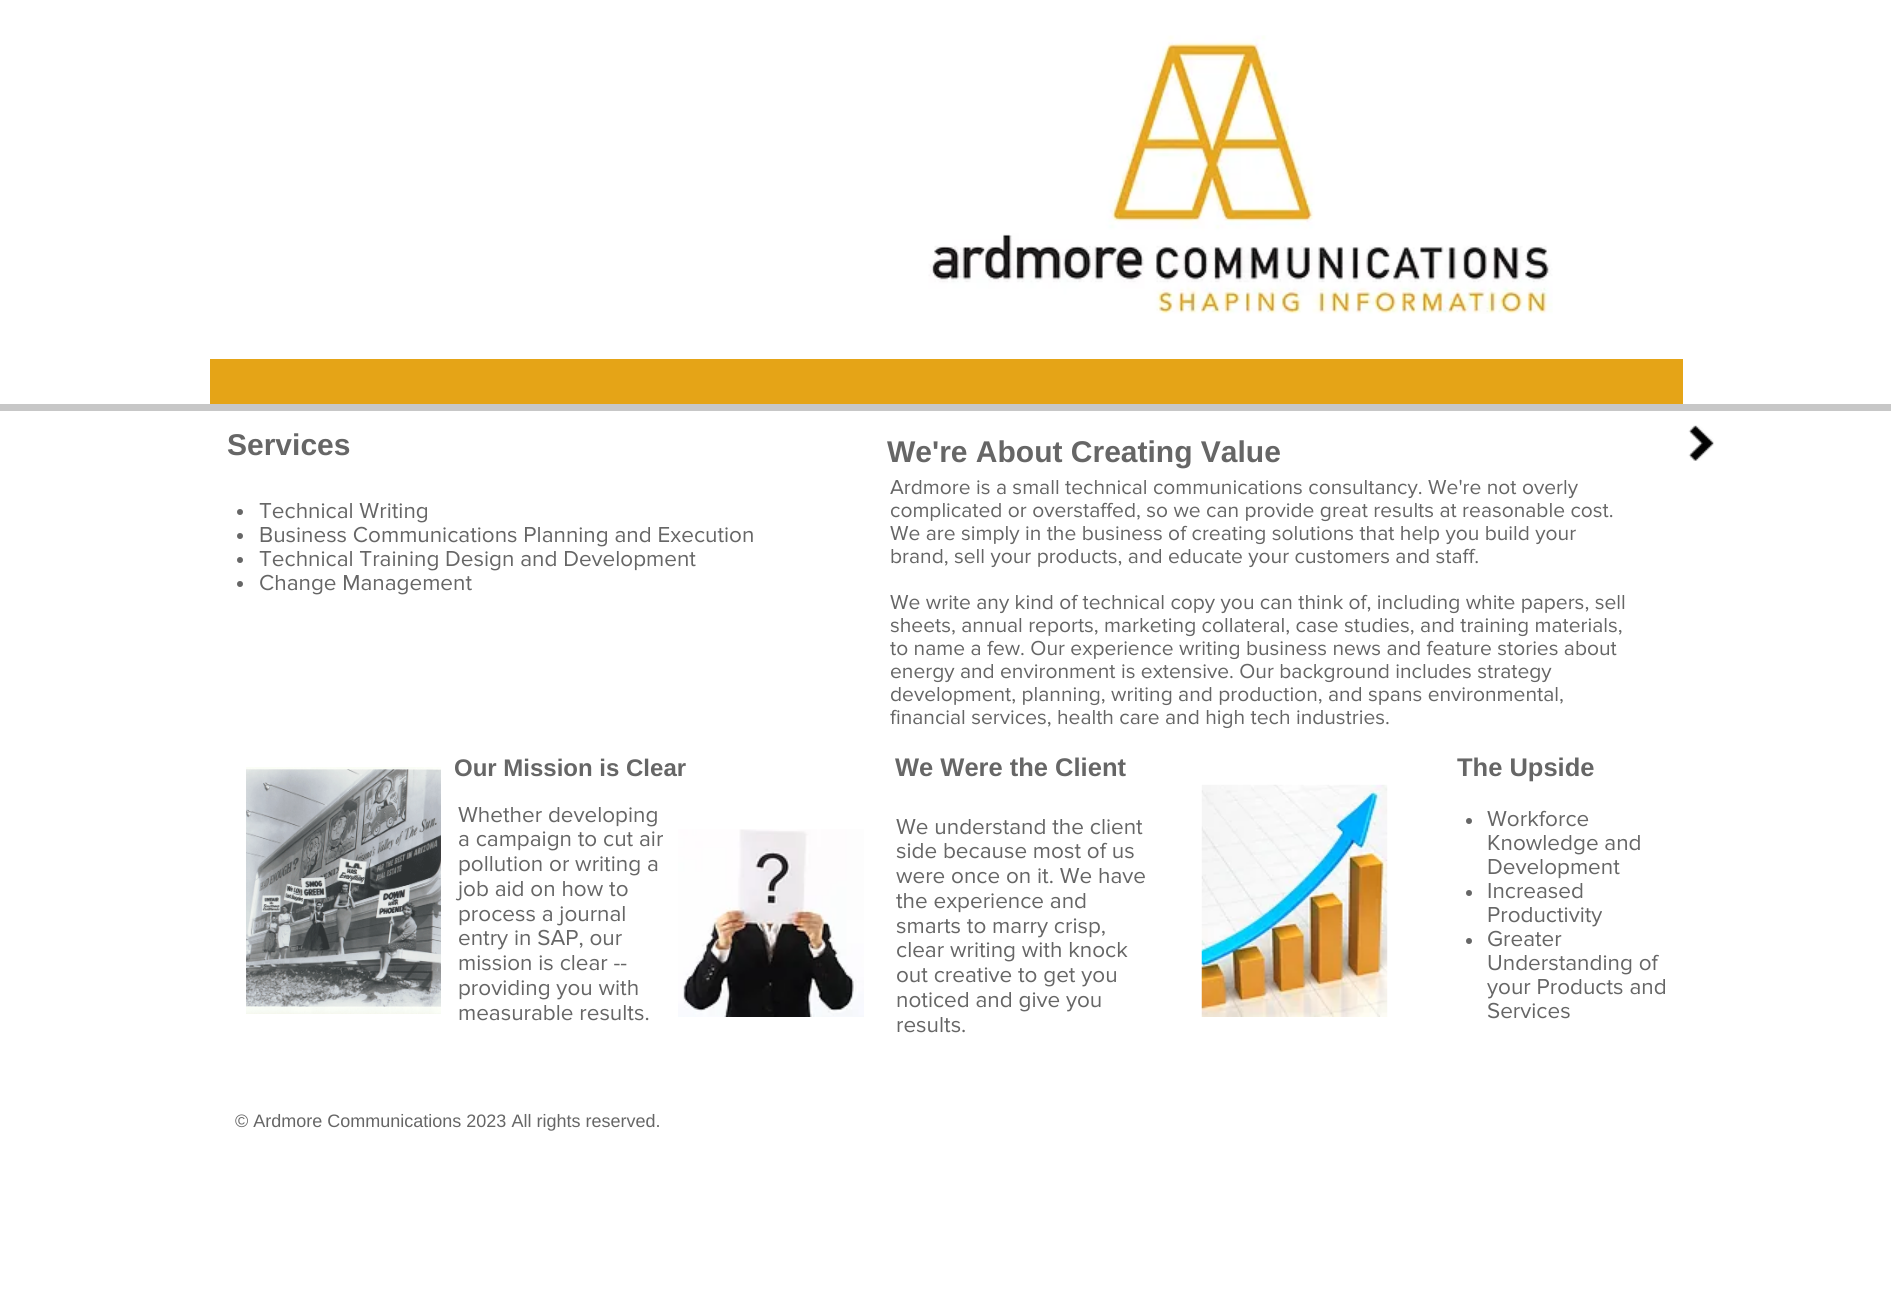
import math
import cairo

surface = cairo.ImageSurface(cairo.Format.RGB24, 1891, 1308)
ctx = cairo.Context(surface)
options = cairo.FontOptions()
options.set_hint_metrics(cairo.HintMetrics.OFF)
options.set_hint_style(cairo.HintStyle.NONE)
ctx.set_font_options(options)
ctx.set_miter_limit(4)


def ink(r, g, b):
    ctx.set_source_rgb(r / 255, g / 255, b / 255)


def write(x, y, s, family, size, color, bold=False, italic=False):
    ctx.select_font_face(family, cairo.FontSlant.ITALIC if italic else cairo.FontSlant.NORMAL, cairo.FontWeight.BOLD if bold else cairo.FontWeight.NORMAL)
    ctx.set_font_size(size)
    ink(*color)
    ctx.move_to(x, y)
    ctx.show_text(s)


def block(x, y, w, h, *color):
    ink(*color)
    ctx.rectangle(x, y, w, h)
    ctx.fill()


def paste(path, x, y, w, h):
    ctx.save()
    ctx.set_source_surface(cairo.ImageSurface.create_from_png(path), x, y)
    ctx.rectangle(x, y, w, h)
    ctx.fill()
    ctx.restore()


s1 = dict(family="Liberation Sans", size=30, color=(102, 102, 102), bold=True)
s2 = dict(family="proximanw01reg", size=22.5, color=(102, 102, 102))
s3 = dict(family="proximanw01reg", size=21, color=(102, 102, 102))
s4 = dict(family="Liberation Sans", size=24, color=(102, 102, 102), bold=True)
s5 = dict(family="Liberation Sans", size=25.5, color=(102, 102, 102), bold=True)
s6 = dict(family="Liberation Sans", size=18, color=(102, 102, 102))

ink(255, 255, 255)
ctx.paint()
paste("pic1.png", 928, 35, 625, 279)
block(210, 359, 1473, 45, 229, 164, 23)
block(0, 404, 1891, 7, 199, 199, 199)
write(227, 455, "Services", **s1)
write(887, 462, "We're About Creating Value", **s1)
paste("pic2.png", 1688, 425, 26, 36)
ctx.arc(240, 512, 3, 0, 2 * math.pi)
ctx.fill()
write(259, 518, "Technical Writing", **s2)
ctx.new_path()
ctx.arc(240, 536, 3, 0, 2 * math.pi)
ctx.fill()
write(259, 542, "Business Communications Planning and Execution", **s2)
ctx.new_path()
ctx.arc(240, 560, 3, 0, 2 * math.pi)
ctx.fill()
write(259, 566, "Technical Training Design and Development", **s2)
ctx.new_path()
ctx.arc(240, 584, 3, 0, 2 * math.pi)
ctx.fill()
write(259, 590, "Change Management", **s2)
write(890, 494, "Ardmore is a small technical communications consultancy. We're not overly", **s3)
write(890, 517, "complicated or overstaffed, so we can provide great results at reasonable cost.", **s3)
write(890, 540, "We are simply in the business of creating solutions that help you build your", **s3)
write(890, 563, "brand, sell your products, and educate your customers and staff.", **s3)
write(890, 609, "We write any kind of technical copy you can think of, including white papers, sell", **s3)
write(890, 632, "sheets, annual reports, marketing collateral, case studies, and training materials,", **s3)
write(890, 655, "to name a few. Our experience writing business news and feature stories about", **s3)
write(890, 678, "energy and environment is extensive. Our background includes strategy", **s3)
write(890, 701, "development, planning, writing and production, and spans environmental,", **s3)
write(890, 724, "financial services, health care and high tech industries.", **s3)
paste("pic3.png", 246, 767, 195, 247)
write(454, 776, "Our Mission is Clear", **s4)
write(895, 776, "We Were the Client", **s5)
paste("pic4.png", 1201, 784, 187, 233)
write(1457, 776, "The Upside", **s5)
write(458, 822, "Whether developing", **s2)
write(458, 846, "a campaign to cut air", **s2)
write(458, 871, "pollution or writing a", **s2)
write(458, 896, "job aid on how to", **s2)
write(458, 921, "process a journal", **s2)
write(458, 945, "entry in SAP, our", **s2)
write(458, 970, "mission is clear --", **s2)
write(458, 995, "providing you with", **s2)
write(458, 1020, "measurable results.", **s2)
paste("pic5.png", 678, 829, 186, 188)
write(896, 834, "We understand the client", **s2)
write(896, 858, "side because most of us", **s2)
write(896, 883, "were once on it. We have", **s2)
write(896, 908, "the experience and", **s2)
write(896, 933, "smarts to marry crisp,", **s2)
write(896, 957, "clear writing with knock", **s2)
write(896, 982, "out creative to get you", **s2)
write(896, 1007, "noticed and give you", **s2)
write(896, 1032, "results.", **s2)
ctx.new_path()
ctx.arc(1469, 821, 3, 0, 2 * math.pi)
ctx.fill()
write(1487, 826, "Workforce", **s2)
write(1487, 850, "Knowledge and", **s2)
write(1487, 874, "Development", **s2)
ctx.new_path()
ctx.arc(1469, 893, 3, 0, 2 * math.pi)
ctx.fill()
write(1487, 898, "Increased", **s2)
write(1487, 922, "Productivity", **s2)
ctx.new_path()
ctx.arc(1469, 941, 3, 0, 2 * math.pi)
ctx.fill()
write(1487, 946, "Greater", **s2)
write(1487, 970, "Understanding of", **s2)
write(1487, 994, "your Products and", **s2)
write(1487, 1018, "Services", **s2)
write(235, 1127, "© Ardmore Communications 2023 All rights reserved.", **s6)
surface.write_to_png("screenshot.png")
